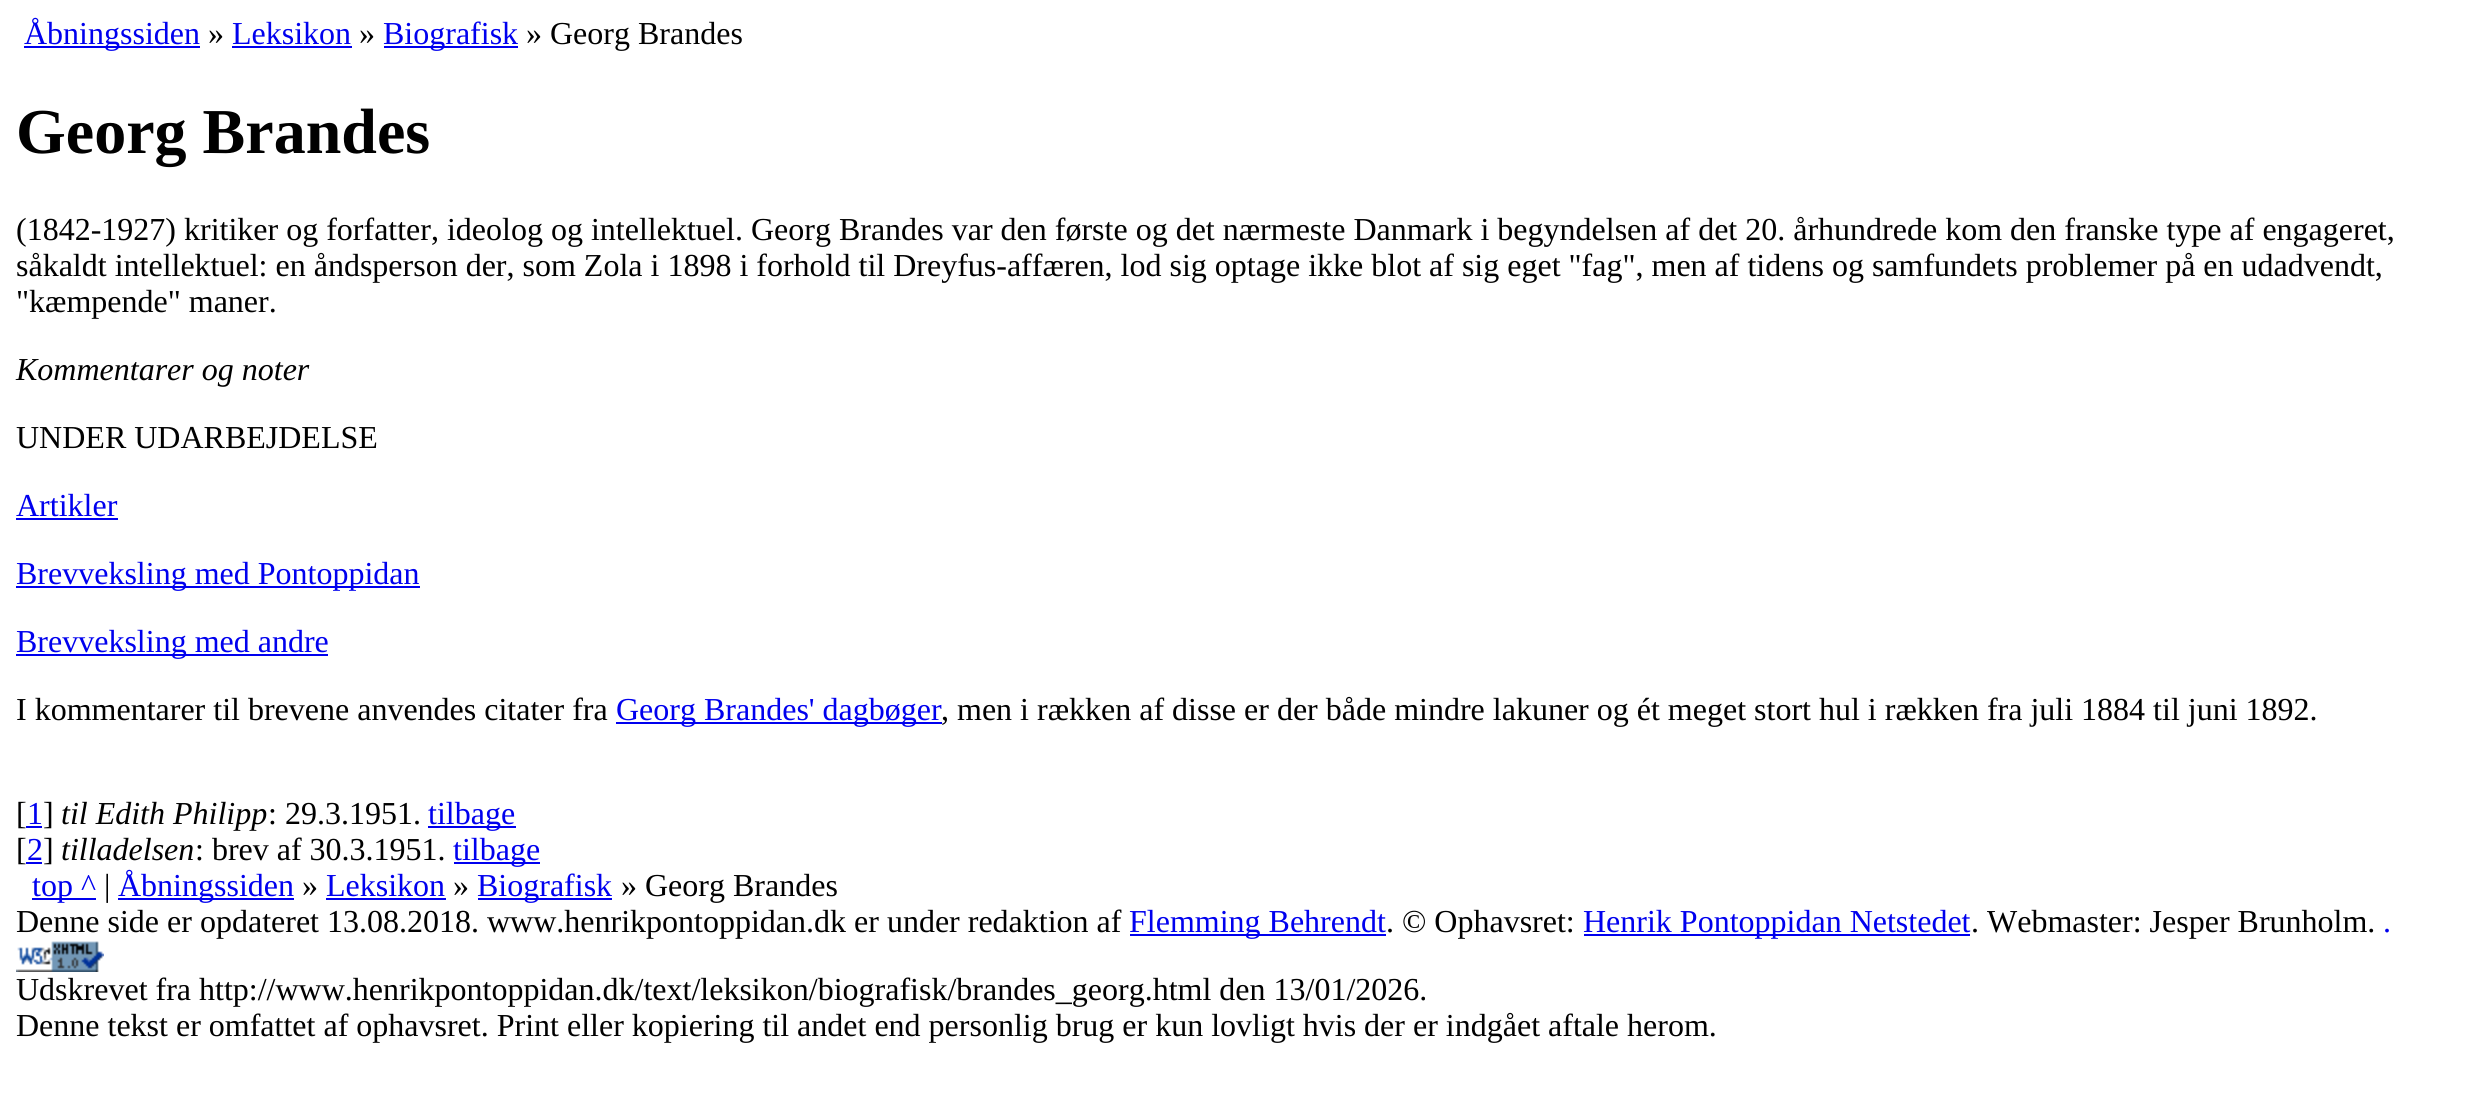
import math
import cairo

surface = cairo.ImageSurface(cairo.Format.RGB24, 2491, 1101)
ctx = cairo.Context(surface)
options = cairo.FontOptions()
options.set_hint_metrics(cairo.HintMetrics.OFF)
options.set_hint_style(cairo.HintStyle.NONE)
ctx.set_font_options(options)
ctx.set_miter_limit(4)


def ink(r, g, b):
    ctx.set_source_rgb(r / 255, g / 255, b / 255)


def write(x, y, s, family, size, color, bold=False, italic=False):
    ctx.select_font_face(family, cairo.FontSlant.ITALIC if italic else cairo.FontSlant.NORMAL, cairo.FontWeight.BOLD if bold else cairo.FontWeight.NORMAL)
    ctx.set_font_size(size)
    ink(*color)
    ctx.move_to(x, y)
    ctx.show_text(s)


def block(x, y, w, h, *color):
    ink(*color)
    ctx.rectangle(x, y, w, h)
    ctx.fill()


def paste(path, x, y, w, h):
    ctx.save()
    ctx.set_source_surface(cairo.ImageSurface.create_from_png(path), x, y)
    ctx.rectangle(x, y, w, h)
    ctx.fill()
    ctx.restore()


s1 = dict(family="Liberation Serif", size=32, color=(0, 0, 238))
s2 = dict(family="Liberation Serif", size=32, color=(0, 0, 0))
s3 = dict(family="Liberation Serif", size=64, color=(0, 0, 0), bold=True)
s4 = dict(family="Liberation Serif", size=32, color=(0, 0, 0), italic=True)

ink(255, 255, 255)
ctx.paint()
block(24, 46, 176, 2, 0, 0, 238)
write(24, 44, "Åbningssiden", **s1)
write(208, 44, "»", **s2)
write(232, 44, "Leksikon", **s1)
block(232, 46, 120, 2, 0, 0, 238)
write(359, 44, "»", **s2)
block(384, 46, 134, 2, 0, 0, 238)
write(383, 44, "Biografisk", **s1)
write(526, 44, "» Georg Brandes", **s2)
write(16, 153, "Georg Brandes", **s3)
write(16, 240, "(1842-1927) kritiker og forfatter, ideolog og intellektuel. Georg Brandes var den første og det nærmeste Danmark i begyndelsen af det 20. århundrede kom den franske type af engageret,", **s2)
write(16, 276, "såkaldt intellektuel: en åndsperson der, som Zola i 1898 i forhold til Dreyfus-affæren, lod sig optage ikke blot af sig eget \"fag\", men af tidens og samfundets problemer på en udadvendt,", **s2)
write(16, 312, "\"kæmpende\" maner.", **s2)
write(16, 380, "Kommentarer og noter", **s4)
write(16, 448, "UNDER UDARBEJDELSE", **s2)
write(16, 516, "Artikler", **s1)
block(16, 518, 102, 2, 0, 0, 238)
block(16, 586, 404, 2, 0, 0, 238)
write(16, 584, "Brevveksling med Pontoppidan", **s1)
block(16, 654, 312, 2, 0, 0, 238)
write(16, 652, "Brevveksling med andre", **s1)
write(16, 720, "I kommentarer til brevene anvendes citater fra", **s2)
block(616, 722, 326, 2, 0, 0, 238)
write(616, 720, "Georg Brandes' dagbøger", **s1)
write(941, 720, ", men i rækken af disse er der både mindre lakuner og ét meget stort hul i rækken fra juli 1884 til juni 1892.", **s2)
write(16, 824, "[", **s2)
write(27, 824, "1", **s1)
block(26, 826, 16, 2, 0, 0, 238)
write(43, 824, "]", **s2)
write(61, 824, "til Edith Philipp", **s4)
write(268, 824, ": 29.3.1951.", **s2)
block(428, 826, 88, 2, 0, 0, 238)
write(428, 824, "tilbage", **s1)
write(16, 860, "[", **s2)
write(27, 860, "2", **s1)
block(26, 862, 16, 2, 0, 0, 238)
write(43, 860, "]", **s2)
write(61, 860, "tilladelsen", **s4)
write(195, 860, ": brev af 30.3.1951.", **s2)
block(454, 862, 86, 2, 0, 0, 238)
write(453, 860, "tilbage", **s1)
block(32, 898, 64, 2, 0, 0, 238)
write(32, 896, "top ^", **s1)
write(104, 896, "|", **s2)
block(118, 898, 176, 2, 0, 0, 238)
write(118, 896, "Åbningssiden", **s1)
write(302, 896, "»", **s2)
write(326, 896, "Leksikon", **s1)
block(326, 898, 120, 2, 0, 0, 238)
write(453, 896, "»", **s2)
block(478, 898, 134, 2, 0, 0, 238)
write(477, 896, "Biografisk", **s1)
write(621, 896, "» Georg Brandes", **s2)
write(16, 932, "Denne side er opdateret 13.08.2018. www.henrikpontoppidan.dk er under redaktion af", **s2)
block(1130, 934, 256, 2, 0, 0, 238)
write(1129, 932, "Flemming Behrendt", **s1)
write(1386, 932, ". © Ophavsret:", **s2)
block(1584, 934, 386, 2, 0, 0, 238)
write(1583, 932, "Henrik Pontoppidan Netstedet", **s1)
write(1971, 932, ". Webmaster: Jesper Brunholm.", **s2)
write(2383, 932, ".", **s1)
paste("pic1.png", 16, 941, 88, 31)
write(16, 1000, "Udskrevet fra http://www.henrikpontoppidan.dk/text/leksikon/biografisk/brandes_georg.html den 13/01/2026.", **s2)
write(16, 1036, "Denne tekst er omfattet af ophavsret. Print eller kopiering til andet end personlig brug er kun lovligt hvis der er indgået aftale herom.", **s2)
surface.write_to_png("screenshot.png")
